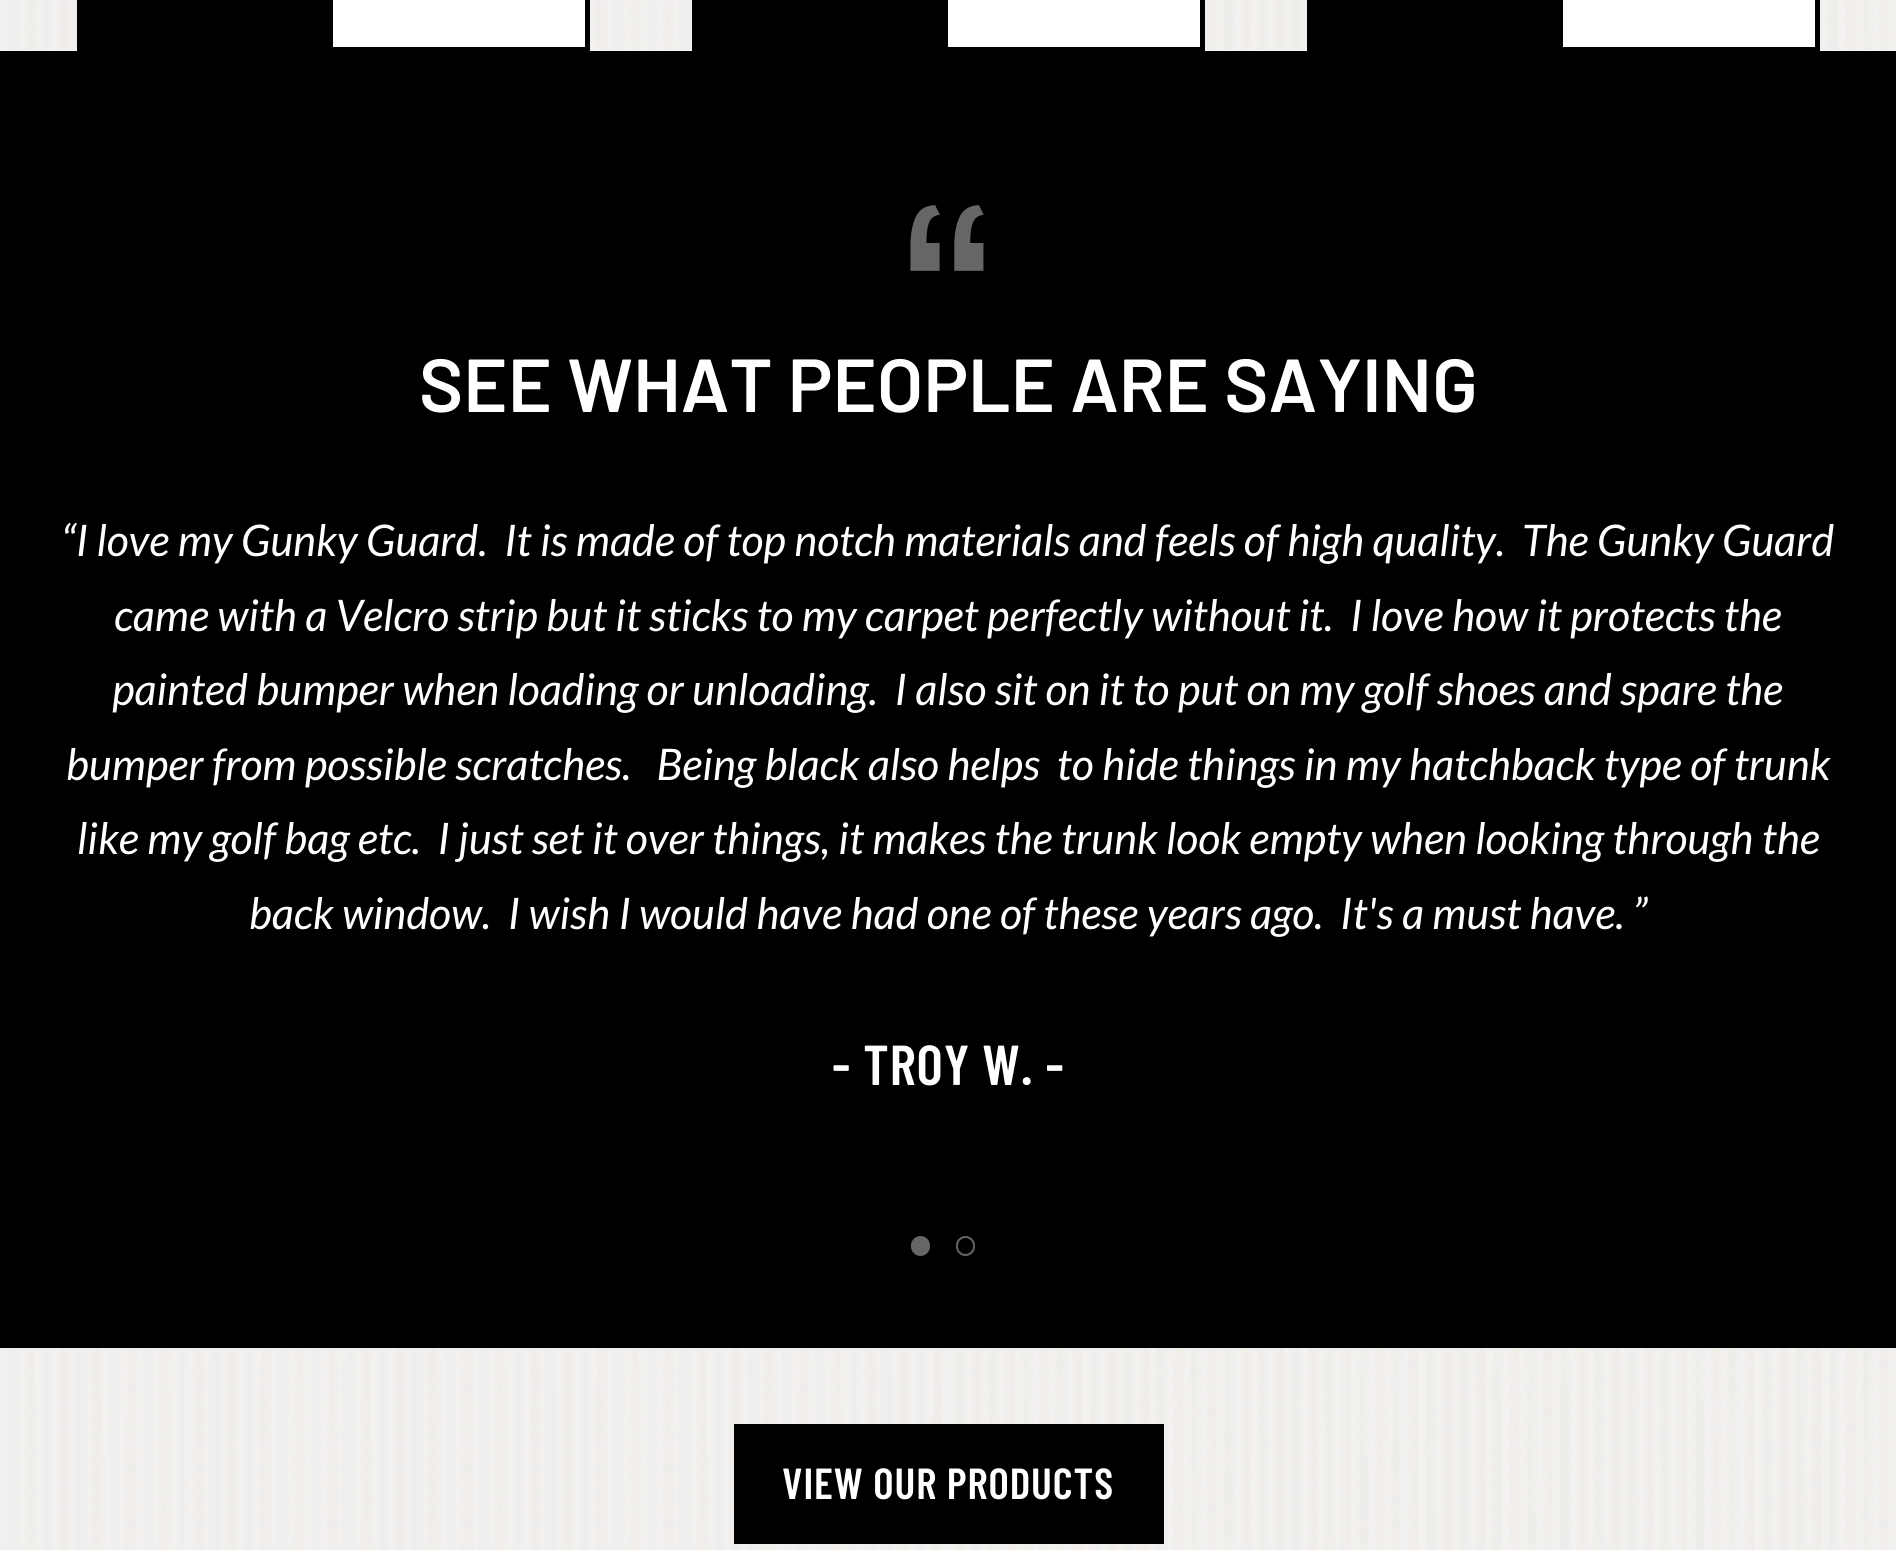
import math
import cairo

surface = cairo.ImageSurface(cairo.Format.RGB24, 1896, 1550)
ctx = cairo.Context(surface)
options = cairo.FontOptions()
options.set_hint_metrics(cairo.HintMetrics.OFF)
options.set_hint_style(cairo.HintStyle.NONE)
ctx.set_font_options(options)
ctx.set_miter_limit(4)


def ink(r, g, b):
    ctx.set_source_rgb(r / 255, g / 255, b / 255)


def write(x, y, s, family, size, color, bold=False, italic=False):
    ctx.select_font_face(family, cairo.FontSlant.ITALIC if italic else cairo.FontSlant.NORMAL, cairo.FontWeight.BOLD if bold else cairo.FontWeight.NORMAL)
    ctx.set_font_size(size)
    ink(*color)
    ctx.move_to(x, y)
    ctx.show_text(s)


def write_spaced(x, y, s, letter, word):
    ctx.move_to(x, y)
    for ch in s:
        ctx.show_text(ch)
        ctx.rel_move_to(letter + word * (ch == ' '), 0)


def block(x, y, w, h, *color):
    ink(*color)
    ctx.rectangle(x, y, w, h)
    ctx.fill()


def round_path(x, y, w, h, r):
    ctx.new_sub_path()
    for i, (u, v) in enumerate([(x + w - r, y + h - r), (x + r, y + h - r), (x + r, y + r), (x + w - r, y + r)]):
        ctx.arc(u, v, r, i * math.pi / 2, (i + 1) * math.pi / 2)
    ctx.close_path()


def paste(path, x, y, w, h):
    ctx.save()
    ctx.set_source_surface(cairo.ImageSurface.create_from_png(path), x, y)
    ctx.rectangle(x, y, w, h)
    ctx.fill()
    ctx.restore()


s1 = dict(family="Barlow SemiBold", size=75, color=(255, 255, 255))
s2 = dict(family="Lato", size=43.5, color=(255, 255, 255), italic=True)

ink(255, 255, 255)
ctx.paint()
paste("pic1.png", 0, 0, 1896, 51)
block(77, 0, 513, 51, 0, 0, 0)
block(333, 0, 252, 47, 255, 255, 255)
block(692, 0, 513, 51, 0, 0, 0)
block(948, 0, 252, 47, 255, 255, 255)
block(1307, 0, 513, 51, 0, 0, 0)
block(1563, 0, 252, 47, 255, 255, 255)
block(0, 51, 1896, 1297, 0, 0, 0)
ctx.select_font_face("Oswald")
ctx.set_font_size(249)
ink(102, 102, 102)
write_spaced(903, 415, "“", 0.9, 0)
write(419, 412, "SEE WHAT PEOPLE ARE SAYING", **s1)
write(61, 556, "“I love my Gunky Guard.  It is made of top notch materials and feels of high quality.  The Gunky Guard", **s2)
write(114, 631, "came with a Velcro strip but it sticks to my carpet perfectly without it.  I love how it protects the", **s2)
write(112, 705, "painted bumper when loading or unloading.  I also sit on it to put on my golf shoes and spare the", **s2)
write(66, 780, "bumper from possible scratches.   Being black also helps  to hide things in my hatchback type of trunk", **s2)
write(77, 854, "like my golf bag etc.  I just set it over things, it makes the trunk look empty when looking through the", **s2)
write(249, 929, "back window.  I wish I would have had one of these years ago.  It's a must have. ”", **s2)
ctx.select_font_face("Barlow Condensed SemiBold")
ctx.set_font_size(56.25)
write_spaced(832, 1085, "- TROY W. -", 0.9, 0)
ink(102, 102, 102)
round_path(912, 1237, 17, 18, 8.5)
ctx.fill_preserve()
ctx.stroke()
round_path(957, 1237, 17, 18, 8.5)
ctx.stroke()
paste("pic2.png", 0, 1348, 1896, 202)
block(734, 1424, 430, 120, 0, 0, 0)
ctx.set_font_size(43.5)
ink(255, 255, 255)
write_spaced(782, 1499, "VIEW OUR PRODUCTS", 0.9, 0)
surface.write_to_png("screenshot.png")
